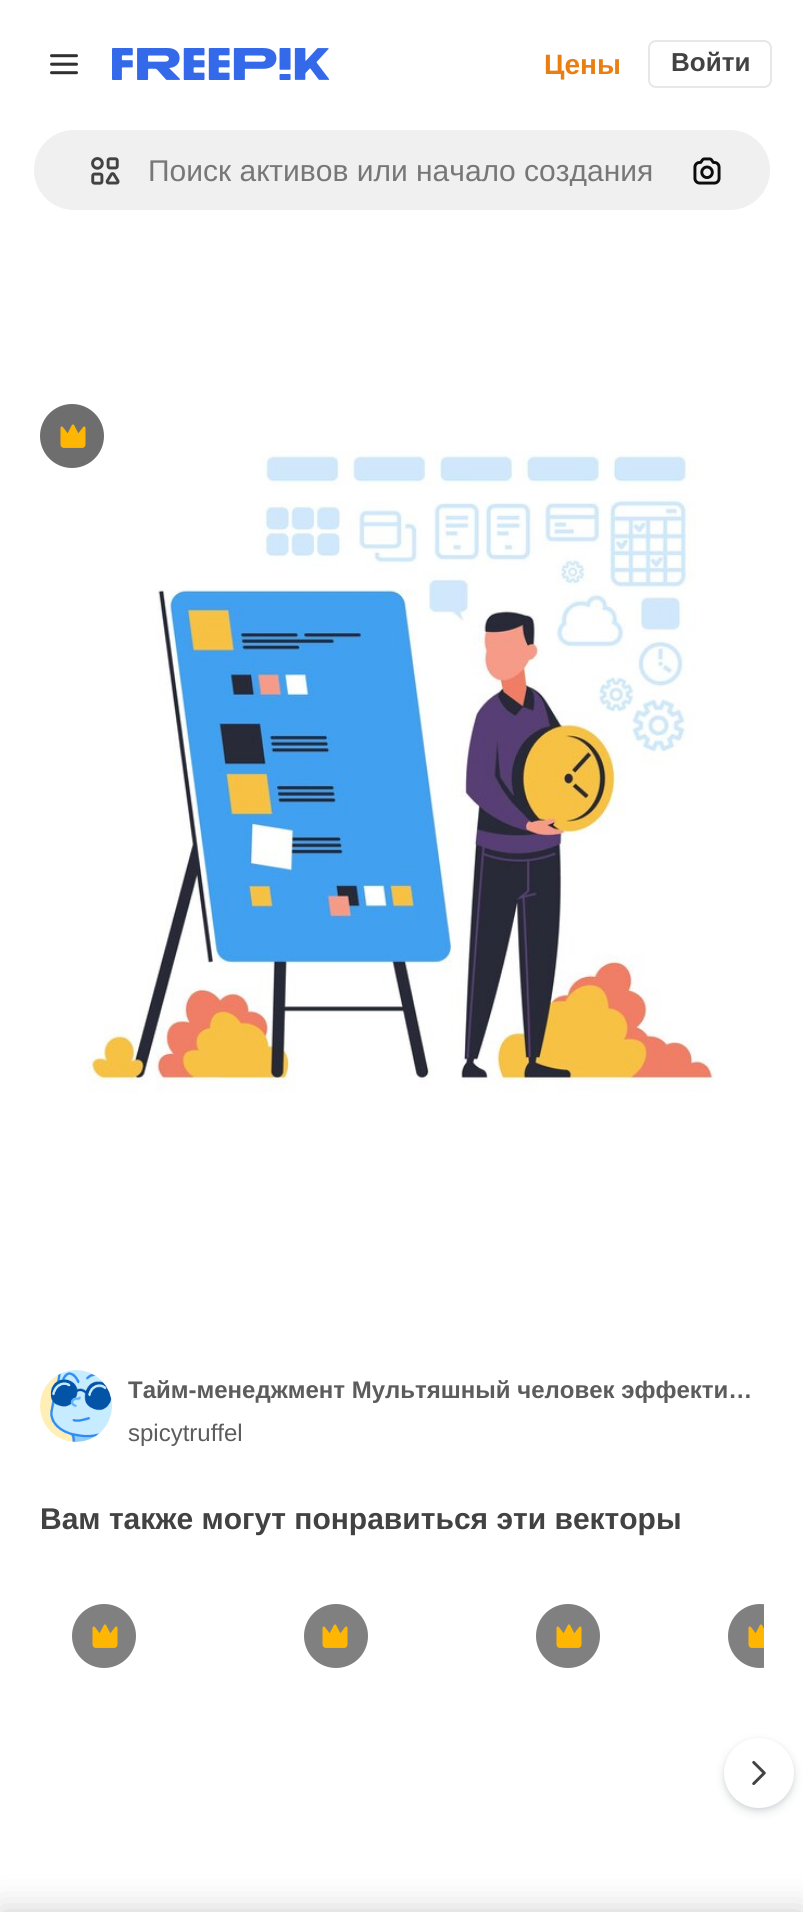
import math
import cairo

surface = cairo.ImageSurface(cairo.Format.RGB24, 803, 1912)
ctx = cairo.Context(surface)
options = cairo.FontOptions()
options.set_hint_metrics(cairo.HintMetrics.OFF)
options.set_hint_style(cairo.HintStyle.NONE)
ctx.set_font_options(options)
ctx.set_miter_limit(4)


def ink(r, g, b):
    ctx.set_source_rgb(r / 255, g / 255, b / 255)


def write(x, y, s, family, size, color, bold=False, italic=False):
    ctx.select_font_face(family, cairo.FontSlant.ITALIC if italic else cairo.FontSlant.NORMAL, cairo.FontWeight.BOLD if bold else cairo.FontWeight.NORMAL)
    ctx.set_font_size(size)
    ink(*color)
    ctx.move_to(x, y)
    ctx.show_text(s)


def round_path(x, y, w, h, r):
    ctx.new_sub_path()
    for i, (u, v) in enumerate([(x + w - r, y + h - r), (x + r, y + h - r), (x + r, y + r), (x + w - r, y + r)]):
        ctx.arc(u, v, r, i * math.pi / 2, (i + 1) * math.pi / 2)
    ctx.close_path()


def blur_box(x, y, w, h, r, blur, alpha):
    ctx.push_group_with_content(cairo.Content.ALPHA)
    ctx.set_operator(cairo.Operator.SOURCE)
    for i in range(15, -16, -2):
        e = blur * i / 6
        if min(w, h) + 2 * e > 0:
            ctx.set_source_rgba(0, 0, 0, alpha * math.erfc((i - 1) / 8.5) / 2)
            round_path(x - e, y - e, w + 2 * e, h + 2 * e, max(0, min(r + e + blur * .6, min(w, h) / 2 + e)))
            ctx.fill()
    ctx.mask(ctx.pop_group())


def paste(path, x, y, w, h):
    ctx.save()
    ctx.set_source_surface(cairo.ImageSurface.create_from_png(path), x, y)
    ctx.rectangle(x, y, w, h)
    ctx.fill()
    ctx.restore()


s1 = dict(family="Liberation Sans", size=28, color=(234, 126, 17), bold=True)
s2 = dict(family="Liberation Sans", size=26, color=(66, 66, 66), bold=True)
s3 = dict(family="Liberation Sans", size=30, color=(119, 119, 119))
s4 = dict(family="Liberation Sans", size=24, color=(92, 92, 92), bold=True)
s5 = dict(family="Liberation Sans", size=24, color=(92, 92, 92))
s6 = dict(family="Liberation Sans", size=30, color=(66, 66, 66), bold=True)

ink(255, 255, 255)
ctx.paint()
paste("pic1.png", 50, 54, 28, 21)
paste("pic2.png", 112, 48, 218, 32)
write(544, 74, "Цены", **s1)
round_path(649, 41, 122, 46, 7)
ink(231, 231, 231)
ctx.stroke()
write(671, 71, "Войти", **s2)
ink(240, 240, 240)
round_path(33, 129, 738, 82, 41)
ctx.fill_preserve()
ink(255, 255, 255)
ctx.stroke()
paste("pic3.png", 91, 157, 29, 28)
ctx.save()
ctx.rectangle(148, 152, 522, 34)
ctx.clip()
write(148, 181, "Поиск активов или начало создания", **s3)
ctx.restore()
paste("pic4.png", 693, 157, 28, 28)
paste("pic6.png", 87, 451, 627, 642)
ink(110, 110, 110)
ctx.arc(72, 436, 32, 0, 2 * math.pi)
ctx.fill()
paste("pic5.png", 60, 424, 26, 24)
paste("pic7.png", 40, 1370, 72, 72)
write(128, 1398, "Тайм-менеджмент Мультяшный человек эффекти…", **s4)
write(128, 1441, "spicytruffel", **s5)
write(40, 1529, "Вам также могут понравиться эти векторы", **s6)
ink(128, 128, 128)
ctx.new_path()
ctx.arc(104, 1636, 32, 0, 2 * math.pi)
ctx.fill()
paste("pic8.png", 92, 1624, 26, 24)
ctx.arc(336, 1636, 32, 0, 2 * math.pi)
ctx.fill()
paste("pic8.png", 322, 1624, 26, 24)
ctx.arc(568, 1636, 32, 0, 2 * math.pi)
ctx.fill()
paste("pic8.png", 556, 1624, 26, 24)
ctx.save()
ctx.rectangle(40, 1572, 724, 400)
ctx.clip()
ctx.arc(760, 1636, 32, 0, 2 * math.pi)
ctx.fill()
ctx.restore()
paste("pic9.png", 748, 1624, 16, 24)
ink(55, 73, 87)
blur_box(724, 1742, 70, 70, 35, 5, 0.15)
blur_box(724, 1740, 70, 70, 35, 2, 0.1)
ink(255, 255, 255)
ctx.arc(759, 1773, 35, 0, 2 * math.pi)
ctx.fill()
paste("pic10.png", 752, 1760, 14, 26)
ink(0, 0, 0)
blur_box(0, 1912, 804, 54, 0, 18, 0.2)
surface.write_to_png("screenshot.png")
